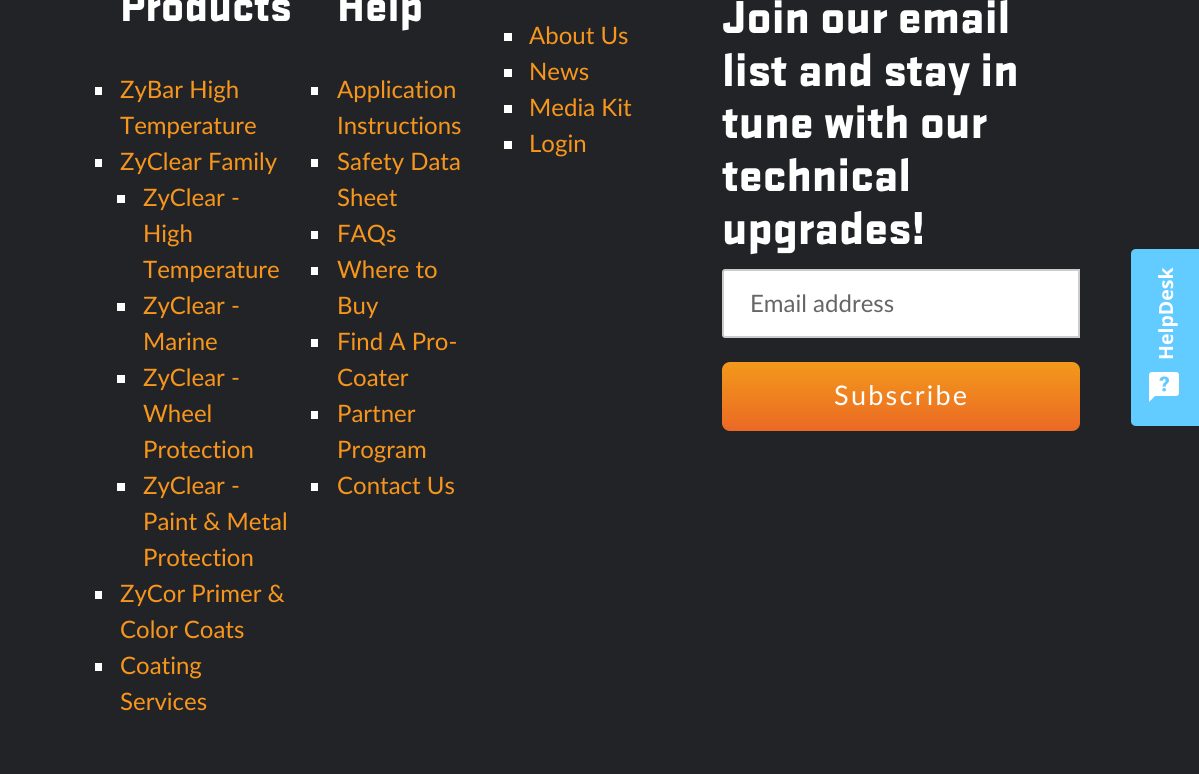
import math
import cairo

surface = cairo.ImageSurface(cairo.Format.RGB24, 1199, 774)
ctx = cairo.Context(surface)
options = cairo.FontOptions()
options.set_hint_metrics(cairo.HintMetrics.OFF)
options.set_hint_style(cairo.HintStyle.NONE)
ctx.set_font_options(options)
ctx.set_miter_limit(4)


def ink(r, g, b):
    ctx.set_source_rgb(r / 255, g / 255, b / 255)


def write(x, y, s, family, size, color, bold=False, italic=False):
    ctx.select_font_face(family, cairo.FontSlant.ITALIC if italic else cairo.FontSlant.NORMAL, cairo.FontWeight.BOLD if bold else cairo.FontWeight.NORMAL)
    ctx.set_font_size(size)
    ink(*color)
    ctx.move_to(x, y)
    ctx.show_text(s)


def write_spaced(x, y, s, letter, word):
    ctx.move_to(x, y)
    for ch in s:
        ctx.show_text(ch)
        ctx.rel_move_to(letter + word * (ch == ' '), 0)


def block(x, y, w, h, *color):
    ink(*color)
    ctx.rectangle(x, y, w, h)
    ctx.fill()


def round_path(x, y, w, h, r):
    ctx.new_sub_path()
    for i, (u, v) in enumerate([(x + w - r, y + h - r), (x + r, y + h - r), (x + r, y + r), (x + w - r, y + r)]):
        ctx.arc(u, v, r, i * math.pi / 2, (i + 1) * math.pi / 2)
    ctx.close_path()


def paste(path, x, y, w, h):
    ctx.save()
    ctx.set_source_surface(cairo.ImageSurface.create_from_png(path), x, y)
    ctx.rectangle(x, y, w, h)
    ctx.fill()
    ctx.restore()


s1 = dict(family="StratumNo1 Black", size=45, color=(255, 255, 255))
s2 = dict(family="Lato", size=24, color=(248, 150, 28))
s3 = dict(family="StratumNo1 Black", size=48, color=(255, 255, 255))
s4 = dict(family="Lato", size=24, color=(102, 102, 102))
s5 = dict(family="Open Sans", size=19.5, color=(255, 255, 255), bold=True)

ink(33, 35, 39)
ctx.paint()
write(120, 21, "Products", **s1)
block(95, 87, 7, 8, 255, 255, 255)
write(120, 98, "ZyBar High", **s2)
write(120, 134, "Temperature", **s2)
block(95, 159, 7, 8, 255, 255, 255)
write(120, 170, "ZyClear Family", **s2)
block(117, 195, 8, 8, 255, 255, 255)
write(143, 206, "ZyClear -", **s2)
write(143, 242, "High", **s2)
write(143, 278, "Temperature", **s2)
block(117, 303, 8, 8, 255, 255, 255)
write(143, 314, "ZyClear -", **s2)
write(143, 350, "Marine", **s2)
block(117, 375, 8, 8, 255, 255, 255)
write(143, 386, "ZyClear -", **s2)
write(143, 422, "Wheel", **s2)
write(143, 458, "Protection", **s2)
block(117, 483, 8, 8, 255, 255, 255)
write(143, 494, "ZyClear -", **s2)
write(143, 530, "Paint & Metal", **s2)
write(143, 566, "Protection", **s2)
block(95, 591, 7, 8, 255, 255, 255)
write(120, 602, "ZyCor Primer &", **s2)
write(120, 638, "Color Coats", **s2)
block(95, 663, 7, 8, 255, 255, 255)
write(120, 674, "Coating", **s2)
write(120, 710, "Services", **s2)
write(337, 21, "Help", **s1)
block(311, 87, 7, 8, 255, 255, 255)
write(337, 98, "Application", **s2)
write(337, 134, "Instructions", **s2)
block(311, 159, 7, 8, 255, 255, 255)
write(337, 170, "Safety Data", **s2)
write(337, 206, "Sheet", **s2)
block(311, 231, 7, 8, 255, 255, 255)
write(337, 242, "FAQs", **s2)
block(311, 267, 7, 8, 255, 255, 255)
write(337, 278, "Where to", **s2)
write(337, 314, "Buy", **s2)
block(311, 339, 7, 8, 255, 255, 255)
write(337, 350, "Find A Pro-", **s2)
write(337, 386, "Coater", **s2)
block(311, 411, 7, 8, 255, 255, 255)
write(337, 422, "Partner", **s2)
write(337, 458, "Program", **s2)
block(311, 483, 7, 8, 255, 255, 255)
write(337, 494, "Contact Us", **s2)
block(504, 33, 8, 8, 255, 255, 255)
write(529, 44, "About Us", **s2)
block(504, 69, 8, 8, 255, 255, 255)
write(529, 80, "News", **s2)
block(504, 105, 8, 8, 255, 255, 255)
write(529, 116, "Media Kit", **s2)
block(504, 141, 8, 8, 255, 255, 255)
write(529, 152, "Login", **s2)
write(722, 33, "Join our email", **s3)
write(722, 86, "list and stay in", **s3)
write(722, 138, "tune with our", **s3)
write(722, 191, "technical", **s3)
write(722, 244, "upgrades!", **s3)
ctx.new_path()
ctx.move_to(725, 270)
ctx.line_to(1079, 270)
ctx.line_to(1079, 337)
ctx.line_to(725, 337)
ctx.curve_to(724, 337, 723, 336, 723, 335)
ctx.line_to(723, 272)
ctx.curve_to(723, 271, 724, 270, 725, 270)
ctx.close_path()
ctx.fill_preserve()
ink(204, 204, 204)
ctx.stroke()
write(750, 312, "Email address", **s4)
gradient = cairo.LinearGradient(901, 431, 901, 362)
gradient.add_color_stop_rgba(0, 0.922, 0.412, 0.141, 1)
gradient.add_color_stop_rgba(1, 0.953, 0.6, 0.106, 1)
ctx.set_source(gradient)
round_path(722, 362, 358, 69, 8)
ctx.fill()
ctx.set_font_size(27)
ink(255, 255, 255)
write_spaced(834, 405, "Subscribe", 2.25, 0)
ink(98, 203, 255)
ctx.new_path()
ctx.move_to(1136, 249)
ctx.line_to(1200, 249)
ctx.line_to(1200, 426)
ctx.line_to(1136, 426)
ctx.curve_to(1133, 426, 1131, 424, 1131, 421)
ctx.line_to(1131, 254)
ctx.curve_to(1131, 251, 1133, 249, 1136, 249)
ctx.close_path()
ctx.fill()
ctx.save()
ctx.translate(1173, 360)
ctx.rotate(-90 * math.pi / 180)
write(0, 0, "HelpDesk", **s5)
ctx.restore()
paste("pic1.png", 1149, 372, 30, 30)
surface.write_to_png("screenshot.png")
